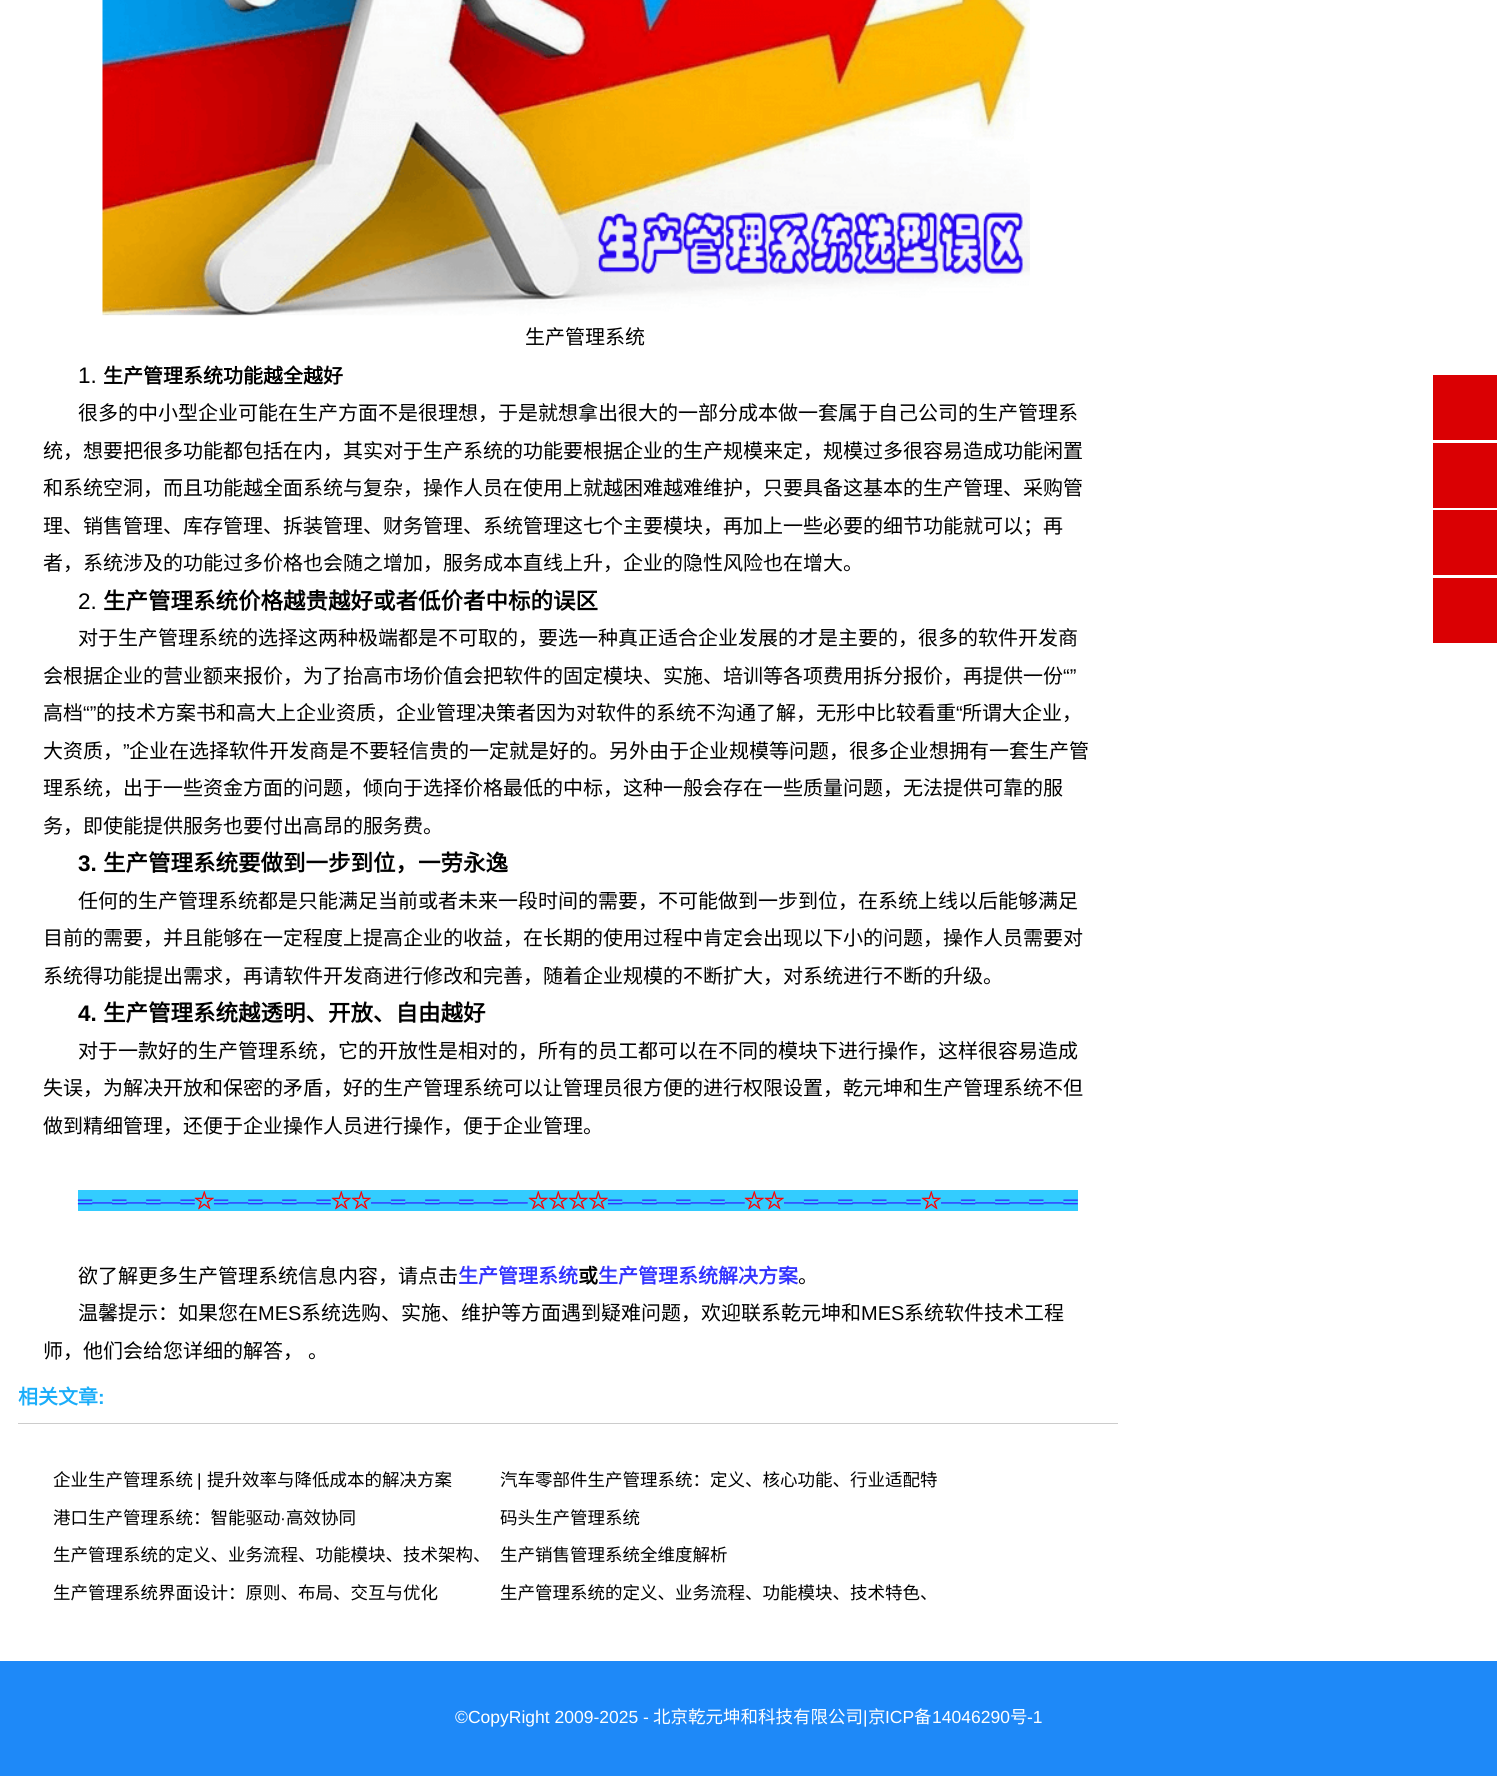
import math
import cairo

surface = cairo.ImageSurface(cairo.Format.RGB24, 1497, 1776)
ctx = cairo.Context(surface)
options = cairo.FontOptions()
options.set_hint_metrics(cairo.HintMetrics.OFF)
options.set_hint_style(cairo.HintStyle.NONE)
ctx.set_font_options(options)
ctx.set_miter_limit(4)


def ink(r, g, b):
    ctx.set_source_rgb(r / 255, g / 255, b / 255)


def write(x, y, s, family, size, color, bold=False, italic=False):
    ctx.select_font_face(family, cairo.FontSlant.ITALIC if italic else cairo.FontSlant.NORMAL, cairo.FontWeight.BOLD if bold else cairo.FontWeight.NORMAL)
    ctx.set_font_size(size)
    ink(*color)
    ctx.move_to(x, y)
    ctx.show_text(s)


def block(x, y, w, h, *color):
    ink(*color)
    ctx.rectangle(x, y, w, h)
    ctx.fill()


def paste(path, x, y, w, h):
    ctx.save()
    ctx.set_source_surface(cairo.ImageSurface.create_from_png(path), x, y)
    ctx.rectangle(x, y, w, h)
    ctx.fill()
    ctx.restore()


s1 = dict(family="Noto Sans CJK SC", size=20, color=(0, 0, 0))
s2 = dict(family="Liberation Sans", size=22.5, color=(0, 0, 0))
s3 = dict(family="Noto Sans CJK SC", size=20, color=(0, 0, 0), bold=True)
s4 = dict(family="Noto Sans CJK SC", size=22.5, color=(0, 0, 0), bold=True)
s5 = dict(family="Liberation Sans", size=20, color=(0, 0, 0))
s6 = dict(family="Liberation Sans", size=22.5, color=(0, 0, 0), bold=True)
s7 = dict(family="Liberation Sans", size=20, color=(51, 51, 255))
s8 = dict(family="Noto Sans CJK SC", size=20, color=(255, 0, 0), bold=True)
s9 = dict(family="Noto Sans CJK SC", size=20, color=(51, 51, 255), bold=True)
s10 = dict(family="Noto Sans CJK SC", size=20, color=(27, 173, 249), bold=True)
s11 = dict(family="Liberation Sans", size=20, color=(27, 173, 249), bold=True)
s12 = dict(family="Noto Sans CJK SC", size=17.5, color=(0, 0, 0))
s13 = dict(family="Liberation Sans", size=17.5, color=(0, 0, 0))
s14 = dict(family="Liberation Sans", size=17.5, color=(255, 255, 255))
s15 = dict(family="Noto Sans CJK SC", size=17.5, color=(255, 255, 255))

ink(255, 255, 255)
ctx.paint()
paste("pic1.png", 102, 0, 928, 316)
write(525, 344, "生产管理系统", **s1)
write(78, 383, "1.", **s2)
write(103, 383, "生产管理系统功能越全越好", **s3)
write(78, 420, "很多的中小型企业可能在生产方面不是很理想，于是就想拿出很大的一部分成本做一套属于自己公司的生产管理系", **s1)
write(43, 458, "统，想要把很多功能都包括在内，其实对于生产系统的功能要根据企业的生产规模来定，规模过多很容易造成功能闲置", **s1)
write(43, 495, "和系统空洞，而且功能越全面系统与复杂，操作人员在使用上就越困难越难维护，只要具备这基本的生产管理、采购管", **s1)
write(43, 533, "理、销售管理、库存管理、拆装管理、财务管理、系统管理这七个主要模块，再加上一些必要的细节功能就可以；再", **s1)
write(43, 570, "者，系统涉及的功能过多价格也会随之增加，服务成本直线上升，企业的隐性风险也在增大。", **s1)
write(78, 609, "2.", **s2)
write(103, 609, "生产管理系统价格越贵越好或者低价者中标的误区", **s4)
write(78, 645, "对于生产管理系统的选择这两种极端都是不可取的，要选一种真正适合企业发展的才是主要的，很多的软件开发商", **s1)
write(43, 683, "会根据企业的营业额来报价，为了抬高市场价值会把软件的固定模块、实施、培训等各项费用拆分报价，再提供一份", **s1)
write(1063, 683, "“”", **s5)
write(43, 720, "高档", **s1)
write(83, 720, "“”", **s5)
write(96, 720, "的技术方案书和高大上企业资质，企业管理决策者因为对软件的系统不沟通了解，无形中比较看重", **s1)
write(956, 720, "“", **s5)
write(962, 720, "所谓大企业，", **s1)
write(43, 758, "大资质，", **s1)
write(123, 758, "”", **s5)
write(129, 758, "企业在选择软件开发商是不要轻信贵的一定就是好的。另外由于企业规模等问题，很多企业想拥有一套生产管", **s1)
write(43, 795, "理系统，出于一些资金方面的问题，倾向于选择价格最低的中标，这种一般会存在一些质量问题，无法提供可靠的服", **s1)
write(43, 833, "务，即使能提供服务也要付出高昂的服务费。", **s1)
write(78, 871, "3.", **s6)
write(103, 871, "生产管理系统要做到一步到位，一劳永逸", **s4)
write(78, 908, "任何的生产管理系统都是只能满足当前或者未来一段时间的需要，不可能做到一步到位，在系统上线以后能够满足", **s1)
write(43, 945, "目前的需要，并且能够在一定程度上提高企业的收益，在长期的使用过程中肯定会出现以下小的问题，操作人员需要对", **s1)
write(43, 983, "系统得功能提出需求，再请软件开发商进行修改和完善，随着企业规模的不断扩大，对系统进行不断的升级。", **s1)
write(78, 1021, "4.", **s6)
write(103, 1021, "生产管理系统越透明、开放、自由越好", **s4)
write(78, 1058, "对于一款好的生产管理系统，它的开放性是相对的，所有的员工都可以在不同的模块下进行操作，这样很容易造成", **s1)
write(43, 1095, "失误，为解决开放和保密的矛盾，好的生产管理系统可以让管理员很方便的进行权限设置，乾元坤和生产管理系统不但", **s1)
write(43, 1133, "做到精细管理，还便于企业操作人员进行操作，便于企业管理。", **s1)
block(78, 1190, 1000, 21, 51, 204, 255)
write(78, 1208, "═—═—═—═", **s7)
write(194, 1208, "☆", **s8)
write(214, 1208, "═—═—═—═", **s7)
write(331, 1208, "☆☆", **s8)
write(371, 1208, "—═—═—═—═—", **s7)
write(528, 1208, "☆☆☆☆", **s8)
write(608, 1208, "═—═—═—═—", **s7)
write(744, 1208, "☆☆", **s8)
write(784, 1208, "—═—═—═—═", **s7)
write(921, 1208, "☆", **s8)
write(941, 1208, "—═—═—═—═", **s7)
write(78, 1283, "欲了解更多生产管理系统信息内容，请点击", **s1)
write(458, 1283, "生产管理系统", **s9)
write(578, 1283, "或", **s3)
write(598, 1283, "生产管理系统解决方案", **s9)
write(798, 1283, "。", **s1)
write(78, 1320, "温馨提示：如果您在", **s1)
write(258, 1320, "MES", **s5)
write(301, 1320, "系统选购、实施、维护等方面遇到疑难问题，欢迎联系乾元坤和", **s1)
write(861, 1320, "MES", **s5)
write(904, 1320, "系统软件技术工程", **s1)
write(43, 1358, "师，他们会给您详细的解答，", **s1)
write(308, 1358, "。", **s1)
block(18, 1423, 1100, 1, 204, 204, 204)
write(18, 1404, "相关文章", **s10)
write(98, 1404, ":", **s11)
write(53, 1486, "企业生产管理系统", **s12)
write(197, 1486, "|", **s13)
write(207, 1486, "提升效率与降低成本的解决方案", **s12)
write(500, 1486, "汽车零部件生产管理系统：定义、核心功能、行业适配特", **s12)
write(53, 1524, "港口生产管理系统：智能驱动", **s12)
write(280, 1524, "·", **s13)
write(286, 1524, "高效协同", **s12)
write(500, 1524, "码头生产管理系统", **s12)
write(53, 1561, "生产管理系统的定义、业务流程、功能模块、技术架构、", **s12)
write(500, 1561, "生产销售管理系统全维度解析", **s12)
write(53, 1599, "生产管理系统界面设计：原则、布局、交互与优化", **s12)
write(500, 1599, "生产管理系统的定义、业务流程、功能模块、技术特色、", **s12)
block(1433, 375, 64, 65, 218, 0, 3)
block(1433, 443, 64, 65, 218, 0, 3)
block(1433, 510, 64, 65, 218, 0, 3)
block(1433, 578, 64, 65, 218, 0, 3)
block(0, 1661, 1497, 115, 30, 137, 248)
write(455, 1723, "©CopyRight 2009-2025 -", **s14)
write(653, 1723, "北京乾元坤和科技有限公司", **s15)
write(863, 1723, "|", **s14)
write(868, 1723, "京", **s15)
write(885, 1723, "ICP", **s14)
write(914, 1723, "备", **s15)
write(932, 1723, "14046290", **s14)
write(1010, 1723, "号", **s15)
write(1027, 1723, "-1", **s14)
surface.write_to_png("screenshot.png")
